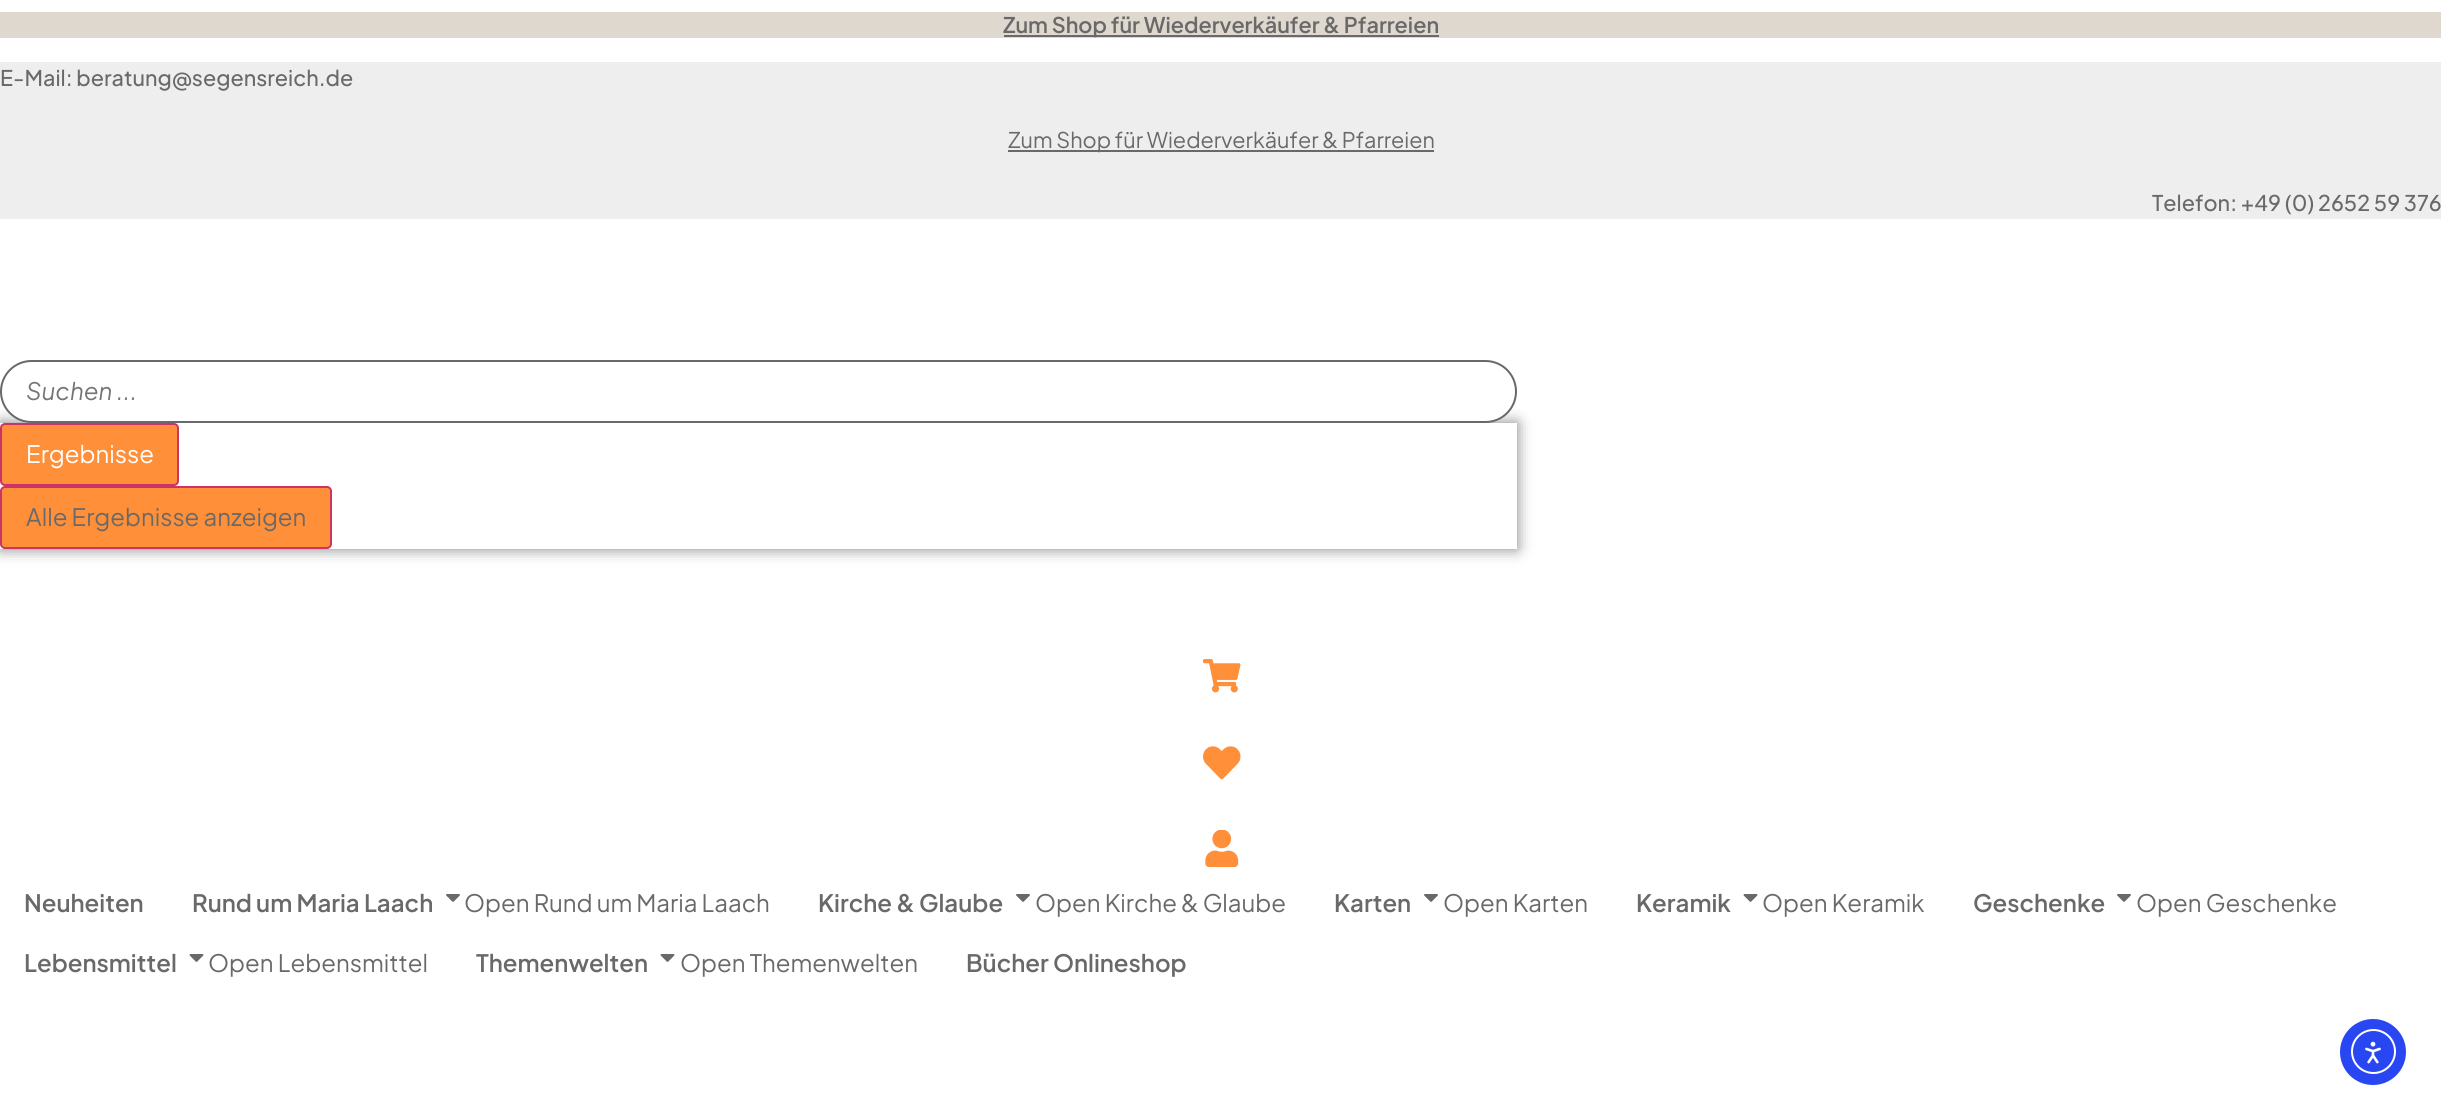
import math
import cairo

surface = cairo.ImageSurface(cairo.Format.RGB24, 2441, 1120)
ctx = cairo.Context(surface)
options = cairo.FontOptions()
options.set_hint_metrics(cairo.HintMetrics.OFF)
options.set_hint_style(cairo.HintStyle.NONE)
ctx.set_font_options(options)
ctx.set_miter_limit(4)


def ink(r, g, b):
    ctx.set_source_rgb(r / 255, g / 255, b / 255)


def write(x, y, s, family, size, color, bold=False, italic=False):
    ctx.select_font_face(family, cairo.FontSlant.ITALIC if italic else cairo.FontSlant.NORMAL, cairo.FontWeight.BOLD if bold else cairo.FontWeight.NORMAL)
    ctx.set_font_size(size)
    ink(*color)
    ctx.move_to(x, y)
    ctx.show_text(s)


def block(x, y, w, h, *color):
    ink(*color)
    ctx.rectangle(x, y, w, h)
    ctx.fill()


def round_path(x, y, w, h, r):
    ctx.new_sub_path()
    for i, (u, v) in enumerate([(x + w - r, y + h - r), (x + r, y + h - r), (x + r, y + r), (x + w - r, y + r)]):
        ctx.arc(u, v, r, i * math.pi / 2, (i + 1) * math.pi / 2)
    ctx.close_path()


def blur_box(x, y, w, h, r, blur, alpha):
    ctx.push_group_with_content(cairo.Content.ALPHA)
    ctx.set_operator(cairo.Operator.SOURCE)
    for i in range(15, -16, -2):
        e = blur * i / 6
        if min(w, h) + 2 * e > 0:
            ctx.set_source_rgba(0, 0, 0, alpha * math.erfc((i - 1) / 8.5) / 2)
            round_path(x - e, y - e, w + 2 * e, h + 2 * e, max(0, min(r + e + blur * .6, min(w, h) / 2 + e)))
            ctx.fill()
    ctx.mask(ctx.pop_group())


def paste(path, x, y, w, h):
    ctx.save()
    ctx.set_source_surface(cairo.ImageSurface.create_from_png(path), x, y)
    ctx.rectangle(x, y, w, h)
    ctx.fill()
    ctx.restore()


s1 = dict(family="Plus Jakarta Sans SemiBold", size=21.6, color=(105, 105, 105))
s2 = dict(family="Plus Jakarta Sans Medium", size=21.6, color=(105, 105, 105))
s3 = dict(family="Plus Jakarta Sans", size=21.6, color=(105, 105, 105))
s4 = dict(family="Plus Jakarta Sans", size=24, color=(117, 117, 117), italic=True)
s5 = dict(family="Plus Jakarta Sans", size=24, color=(255, 255, 255))
s6 = dict(family="Plus Jakarta Sans", size=24, color=(105, 105, 105))
s7 = dict(family="Plus Jakarta Sans SemiBold", size=24, color=(105, 105, 105))

ink(255, 255, 255)
ctx.paint()
block(0, 12, 2441, 26, 222, 216, 207)
block(1004, 35, 435, 2, 105, 105, 105)
write(1003, 33, "Zum Shop für Wiederverkäufer & Pfarreien", **s1)
block(0, 62, 2441, 157, 238, 238, 238)
write(0, 86, "E-Mail: beratung@segensreich.de", **s2)
block(1008, 150, 426, 2, 105, 105, 105)
write(1008, 148, "Zum Shop für Wiederverkäufer & Pfarreien", **s3)
write(2152, 211, "Telefon: +49 (0) 2652 59 376", **s2)
ctx.save()
ctx.set_fill_rule(cairo.FillRule.EVEN_ODD)
ctx.new_path()
ctx.move_to(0, 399)
ctx.line_to(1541, 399)
ctx.line_to(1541, 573)
ctx.line_to(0, 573)
ctx.close_path()
ctx.move_to(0, 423)
ctx.line_to(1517, 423)
ctx.line_to(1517, 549)
ctx.line_to(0, 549)
ctx.close_path()
ctx.clip()
ink(0, 0, 0)
blur_box(0, 423, 1517, 126, 0, 7.5, 0.5)
ctx.restore()
ink(255, 255, 255)
round_path(1, 361, 1515, 61, 30.5)
ctx.fill_preserve()
ink(105, 105, 105)
ctx.stroke()
write(26, 400, "Suchen ...", **s4)
ink(255, 143, 56)
round_path(1, 424, 177, 61, 4)
ctx.fill_preserve()
ink(204, 51, 102)
ctx.stroke()
write(26, 463, "Ergebnisse", **s5)
ink(255, 143, 56)
round_path(1, 487, 330, 61, 4)
ctx.fill_preserve()
ink(204, 51, 102)
ctx.stroke()
write(26, 526, "Alle Ergebnisse anzeigen", **s6)
paste("pic1.png", 1203, 659, 38, 34)
paste("pic2.png", 1203, 746, 38, 34)
paste("pic3.png", 1205, 830, 34, 37)
write(24, 912, "Neuheiten", **s7)
write(192, 912, "Rund um Maria Laach", **s7)
paste("pic4.png", 446, 894, 14, 8)
write(464, 912, "Open Rund um Maria Laach", **s6)
write(818, 912, "Kirche & Glaube", **s7)
paste("pic4.png", 1016, 894, 14, 8)
write(1035, 912, "Open Kirche & Glaube", **s6)
write(1334, 912, "Karten", **s7)
paste("pic4.png", 1424, 894, 14, 8)
write(1443, 912, "Open Karten", **s6)
write(1636, 912, "Keramik", **s7)
paste("pic5.png", 1743, 894, 15, 8)
write(1762, 912, "Open Keramik", **s6)
write(1973, 912, "Geschenke", **s7)
paste("pic4.png", 2117, 894, 14, 8)
write(2136, 912, "Open Geschenke", **s6)
write(24, 972, "Lebensmittel", **s7)
paste("pic5.png", 189, 954, 15, 8)
write(208, 972, "Open Lebensmittel", **s6)
write(476, 972, "Themenwelten", **s7)
paste("pic5.png", 660, 954, 15, 8)
write(680, 972, "Open Themenwelten", **s6)
write(966, 972, "Bücher Onlineshop", **s7)
ink(40, 71, 243)
ctx.new_path()
ctx.arc(2373, 1052, 33, 0, 2 * math.pi)
ctx.fill()
ctx.arc(2373.5, 1051.5, 21.5, 0, 2 * math.pi)
ink(255, 255, 255)
ctx.stroke()
paste("pic6.png", 2365, 1041, 16, 23)
surface.write_to_png("screenshot.png")
